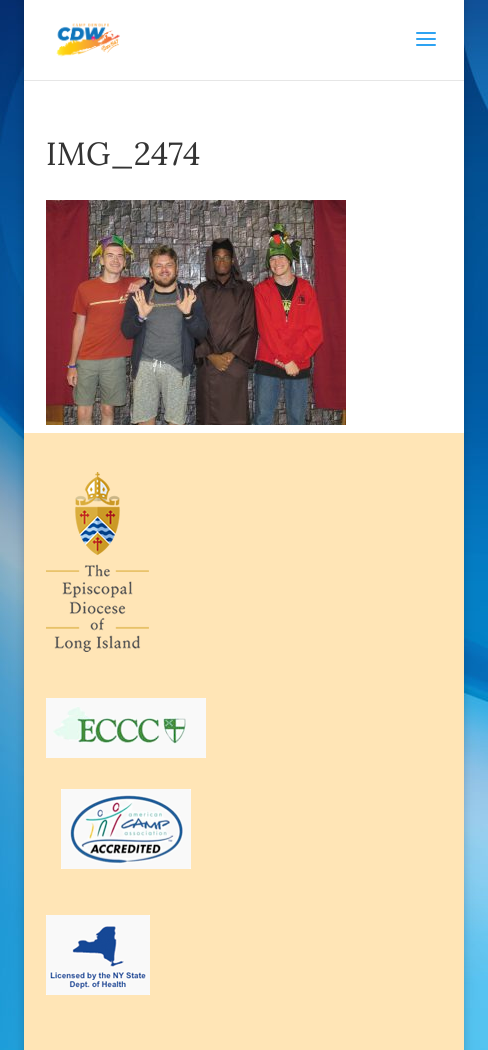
import math
import cairo

surface = cairo.ImageSurface(cairo.Format.RGB24, 488, 1050)
ctx = cairo.Context(surface)
options = cairo.FontOptions()
options.set_hint_metrics(cairo.HintMetrics.OFF)
options.set_hint_style(cairo.HintStyle.NONE)
ctx.set_font_options(options)
ctx.set_miter_limit(4)


def ink(r, g, b):
    ctx.set_source_rgb(r / 255, g / 255, b / 255)


def write(x, y, s, family, size, color, bold=False, italic=False):
    ctx.select_font_face(family, cairo.FontSlant.ITALIC if italic else cairo.FontSlant.NORMAL, cairo.FontWeight.BOLD if bold else cairo.FontWeight.NORMAL)
    ctx.set_font_size(size)
    ink(*color)
    ctx.move_to(x, y)
    ctx.show_text(s)


def block(x, y, w, h, *color):
    ink(*color)
    ctx.rectangle(x, y, w, h)
    ctx.fill()


def round_path(x, y, w, h, r):
    ctx.new_sub_path()
    for i, (u, v) in enumerate([(x + w - r, y + h - r), (x + r, y + h - r), (x + r, y + r), (x + w - r, y + r)]):
        ctx.arc(u, v, r, i * math.pi / 2, (i + 1) * math.pi / 2)
    ctx.close_path()


def blur_box(x, y, w, h, r, blur, alpha):
    ctx.push_group_with_content(cairo.Content.ALPHA)
    ctx.set_operator(cairo.Operator.SOURCE)
    for i in range(15, -16, -2):
        e = blur * i / 6
        if min(w, h) + 2 * e > 0:
            ctx.set_source_rgba(0, 0, 0, alpha * math.erfc((i - 1) / 8.5) / 2)
            round_path(x - e, y - e, w + 2 * e, h + 2 * e, max(0, min(r + e + blur * .6, min(w, h) / 2 + e)))
            ctx.fill()
    ctx.mask(ctx.pop_group())


def paste(path, x, y, w, h):
    ctx.save()
    ctx.set_source_surface(cairo.ImageSurface.create_from_png(path), x, y)
    ctx.rectangle(x, y, w, h)
    ctx.fill()
    ctx.restore()


s1 = dict(family="Lora", size=32, color=(51, 51, 51))

ink(255, 255, 255)
ctx.paint()
paste("pic1.png", 0, 0, 488, 1050)
ink(0, 0, 0)
blur_box(24, 0, 440, 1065, 0, 5, 0.2)
block(24, 80, 440, 1, 230, 230, 230)
block(24, 0, 440, 80, 255, 255, 255)
paste("pic2.png", 56, 23, 64, 34)
paste("pic3.png", 416, 32, 20, 14)
block(24, 81, 440, 352, 255, 255, 255)
write(46, 165, "IMG_2474", **s1)
paste("pic4.png", 46, 200, 300, 225)
block(24, 433, 440, 617, 255, 229, 182)
paste("pic5.png", 46, 472, 103, 180)
paste("pic6.png", 46, 698, 160, 60)
paste("pic7.png", 61, 789, 130, 80)
paste("pic8.png", 46, 915, 104, 80)
surface.write_to_png("screenshot.png")
